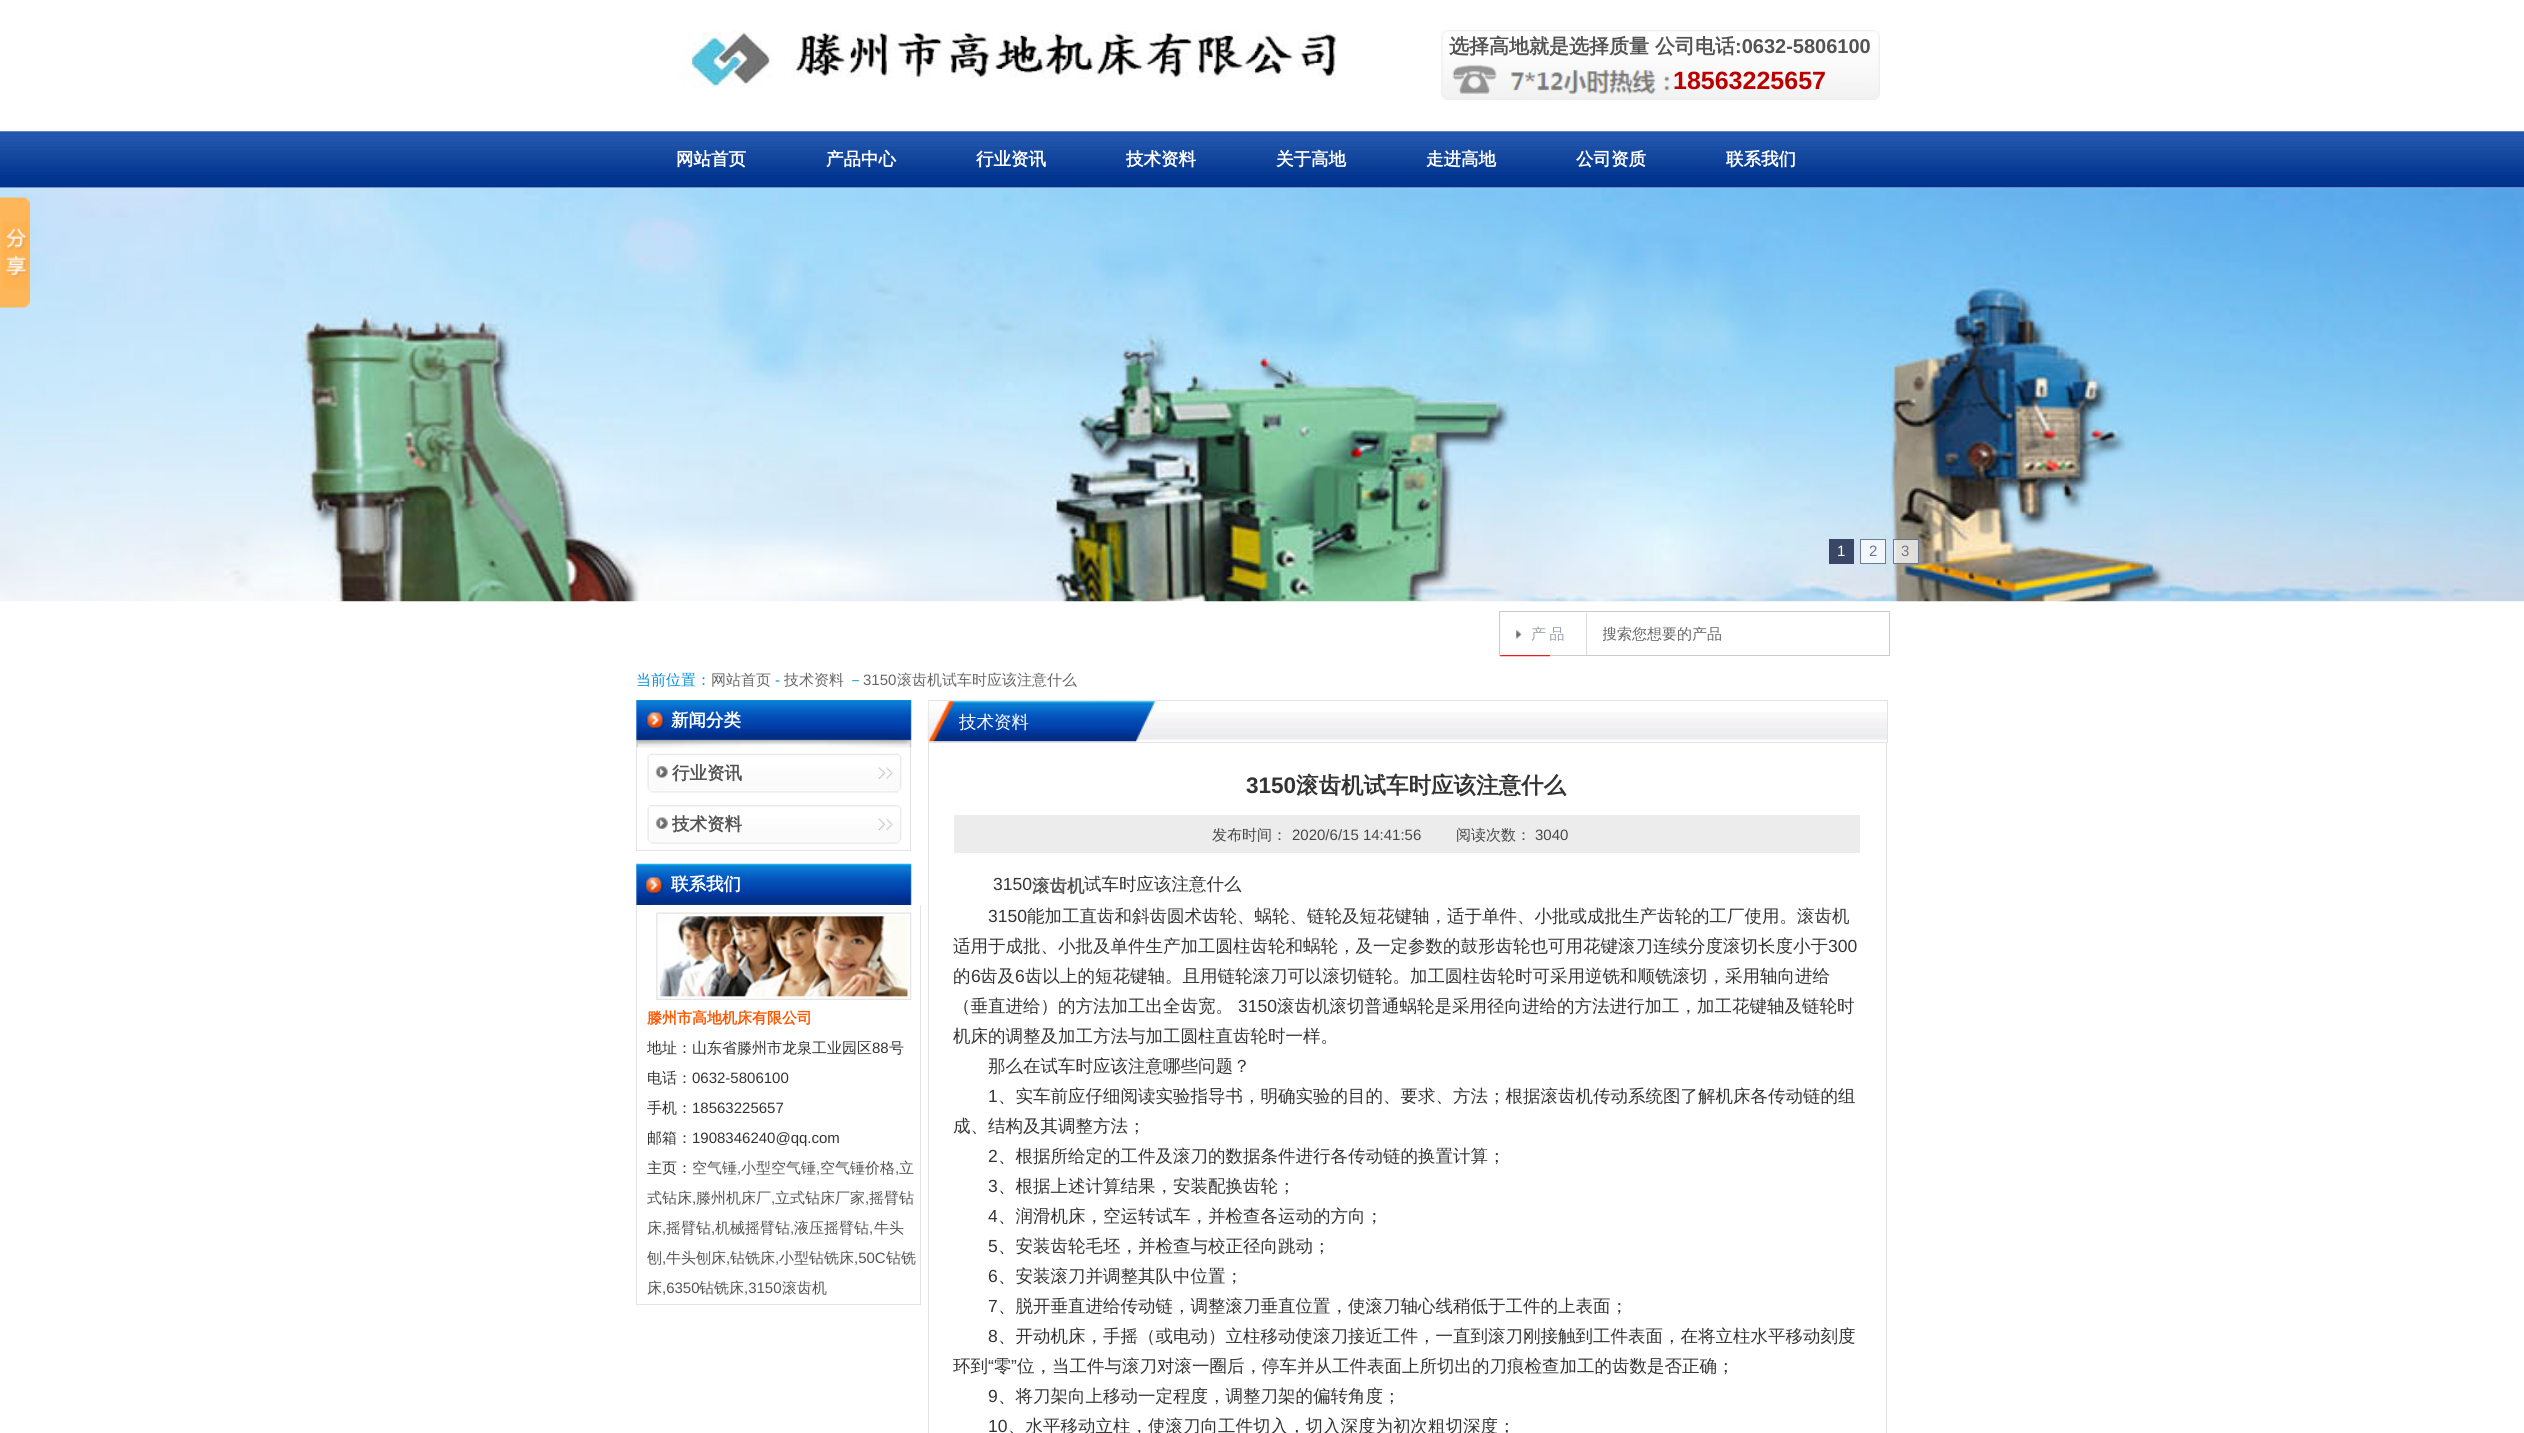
import math
import cairo

surface = cairo.ImageSurface(cairo.Format.RGB24, 2524, 1433)
ctx = cairo.Context(surface)
options = cairo.FontOptions()
options.set_hint_metrics(cairo.HintMetrics.OFF)
options.set_hint_style(cairo.HintStyle.NONE)
ctx.set_font_options(options)
ctx.set_miter_limit(4)


def ink(r, g, b):
    ctx.set_source_rgb(r / 255, g / 255, b / 255)


def write(x, y, s, family, size, color, bold=False, italic=False):
    ctx.select_font_face(family, cairo.FontSlant.ITALIC if italic else cairo.FontSlant.NORMAL, cairo.FontWeight.BOLD if bold else cairo.FontWeight.NORMAL)
    ctx.set_font_size(size)
    ink(*color)
    ctx.move_to(x, y)
    ctx.show_text(s)


def write_spaced(x, y, s, letter, word):
    ctx.move_to(x, y)
    for ch in s:
        ctx.show_text(ch)
        ctx.rel_move_to(letter + word * (ch == ' '), 0)


def block(x, y, w, h, *color):
    ink(*color)
    ctx.rectangle(x, y, w, h)
    ctx.fill()


def paste(path, x, y, w, h):
    ctx.save()
    ctx.set_source_surface(cairo.ImageSurface.create_from_png(path), x, y)
    ctx.rectangle(x, y, w, h)
    ctx.fill()
    ctx.restore()


s1 = dict(family="WenQuanYi Zen Hei", size=20, color=(84, 84, 84), bold=True)
s2 = dict(family="Liberation Sans", size=20, color=(84, 84, 84), bold=True)
s3 = dict(family="Liberation Sans", size=25, color=(187, 0, 0), bold=True)
s4 = dict(family="WenQuanYi Zen Hei", size=17.5, color=(255, 255, 255), bold=True)
s5 = dict(family="Liberation Sans", size=15, color=(255, 255, 255))
s6 = dict(family="Liberation Sans", size=15, color=(103, 118, 144))
s7 = dict(family="Liberation Sans", size=15, color=(108, 117, 137))
s8 = dict(family="WenQuanYi Zen Hei Medium", size=15, color=(102, 102, 102))
s9 = dict(family="WenQuanYi Zen Hei Medium", size=15, color=(0, 143, 215))
s10 = dict(family="Liberation Sans", size=15, color=(0, 143, 215))
s11 = dict(family="Liberation Sans", size=15, color=(102, 102, 102))
s12 = dict(family="WenQuanYi Zen Hei", size=17.5, color=(84, 84, 84), bold=True)
s13 = dict(family="WenQuanYi Zen Hei", size=15, color=(253, 86, 0), bold=True)
s14 = dict(family="WenQuanYi Zen Hei Medium", size=15, color=(51, 51, 51))
s15 = dict(family="Liberation Sans", size=15, color=(51, 51, 51))
s16 = dict(family="WenQuanYi Zen Hei Medium", size=15, color=(84, 84, 84))
s17 = dict(family="Liberation Sans", size=15, color=(84, 84, 84))
s18 = dict(family="WenQuanYi Zen Hei Medium", size=17.5, color=(255, 255, 255))
s19 = dict(family="Liberation Sans", size=22.5, color=(51, 51, 51), bold=True)
s20 = dict(family="WenQuanYi Zen Hei", size=22.5, color=(51, 51, 51), bold=True)
s21 = dict(family="WenQuanYi Zen Hei Medium", size=15, color=(72, 72, 72))
s22 = dict(family="Liberation Sans", size=15, color=(72, 72, 72))
s23 = dict(family="Liberation Sans", size=17.5, color=(51, 51, 51))
s24 = dict(family="WenQuanYi Zen Hei Medium", size=17.5, color=(51, 51, 51))

ink(255, 255, 255)
ctx.paint()
paste("pic1.png", 682, 31, 655, 57)
paste("pic2.png", 1441, 30, 439, 70)
write(1449, 53, "选择高地就是选择质量", **s1)
write(1655, 53, "公司电话", **s1)
write(1735, 53, ":0632-5806100", **s2)
write(1673, 89, "18563225657", **s3)
paste("pic5.png", 0, 187, 2524, 415)
paste("pic3.png", 0, 131, 2524, 57)
write(676, 165, "网站首页", **s4)
write(826, 165, "产品中心", **s4)
write(976, 165, "行业资讯", **s4)
write(1126, 165, "技术资料", **s4)
write(1276, 165, "关于高地", **s4)
write(1426, 165, "走进高地", **s4)
write(1576, 165, "公司资质", **s4)
write(1726, 165, "联系我们", **s4)
paste("pic4.png", 0, 197, 30, 111)
block(1829, 539, 25, 25, 57, 70, 102)
write(1837, 556, "1", **s5)
ctx.set_source_rgba(1, 1, 1, 0.7)
ctx.rectangle(1860, 539, 26, 25)
ctx.fill()
ctx.rectangle(1860.5, 539.5, 25, 24)
ctx.set_source_rgba(0.224, 0.275, 0.4, 0.7)
ctx.set_line_width(1)
ctx.stroke()
write(1869, 556, "2", **s6)
ctx.set_source_rgba(1, 1, 1, 0.7)
ctx.rectangle(1893, 539, 26, 25)
ctx.fill()
ctx.rectangle(1893.5, 539.5, 25, 24)
ctx.set_source_rgba(0.224, 0.275, 0.4, 0.7)
ctx.stroke()
write(1901, 556, "3", **s7)
ctx.rectangle(1499.5, 611.5, 390, 44)
ink(200, 202, 214)
ctx.stroke()
paste("pic6.png", 1516, 630, 6, 9)
block(1586, 613, 1, 42, 218, 219, 223)
ctx.select_font_face("WenQuanYi Zen Hei Medium")
ink(153, 158, 170)
write_spaced(1531, 639, "产 品", 0, -1)
ctx.save()
ctx.rectangle(1603, 614, 235, 40)
ctx.clip()
write(1602, 639, "搜索您想要的产品", **s8)
ctx.restore()
paste("pic7.png", 1500, 655, 50, 2)
write(636, 685, "当前位置：", **s9)
write(711, 685, "网站首页", **s8)
write(775, 685, "-", **s10)
write(784, 685, "技术资料", **s8)
write(848, 685, "－", **s9)
write(863, 685, "3150", **s11)
write(897, 685, "滚齿机试车时应该注意什么", **s8)
paste("pic8.png", 636, 700, 276, 48)
write(671, 726, "新闻分类", **s4)
block(910, 748, 1, 103, 227, 227, 227)
block(636, 850, 275, 1, 227, 227, 227)
block(636, 748, 1, 103, 227, 227, 227)
paste("pic9.png", 647, 753, 255, 40)
write(672, 779, "行业资讯", **s12)
paste("pic10.png", 647, 805, 255, 39)
write(672, 830, "技术资料", **s12)
paste("pic11.png", 636, 863, 276, 42)
write(671, 890, "联系我们", **s4)
block(920, 905, 1, 400, 227, 227, 227)
block(636, 1304, 285, 1, 227, 227, 227)
block(636, 905, 1, 400, 227, 227, 227)
paste("pic12.png", 656, 912, 256, 88)
write(647, 1023, "滕州市高地机床有限公司", **s13)
write(647, 1053, "地址：山东省滕州市龙泉工业园区", **s14)
write(872, 1053, "88", **s15)
write(889, 1053, "号", **s14)
write(647, 1083, "电话：", **s14)
write(692, 1083, "0632-5806100", **s15)
write(647, 1113, "手机：", **s14)
write(692, 1113, "18563225657", **s15)
write(647, 1143, "邮箱：", **s14)
write(692, 1143, "1908346240@qq.com", **s15)
write(647, 1173, "主页：", **s14)
write(692, 1173, "空气锤", **s16)
write(737, 1173, ",", **s17)
write(741, 1173, "小型空气锤", **s16)
write(816, 1173, ",", **s17)
write(820, 1173, "空气锤价格", **s16)
write(895, 1173, ",", **s17)
write(899, 1173, "立", **s16)
write(647, 1203, "式钻床", **s16)
write(692, 1203, ",", **s17)
write(696, 1203, "滕州机床厂", **s16)
write(771, 1203, ",", **s17)
write(775, 1203, "立式钻床厂家", **s16)
write(865, 1203, ",", **s17)
write(869, 1203, "摇臂钻", **s16)
write(647, 1233, "床", **s16)
write(662, 1233, ",", **s17)
write(666, 1233, "摇臂钻", **s16)
write(711, 1233, ",", **s17)
write(715, 1233, "机械摇臂钻", **s16)
write(790, 1233, ",", **s17)
write(794, 1233, "液压摇臂钻", **s16)
write(869, 1233, ",", **s17)
write(874, 1233, "牛头", **s16)
write(647, 1263, "刨", **s16)
write(662, 1263, ",", **s17)
write(666, 1263, "牛头刨床", **s16)
write(726, 1263, ",", **s17)
write(730, 1263, "钻铣床", **s16)
write(775, 1263, ",", **s17)
write(779, 1263, "小型钻铣床", **s16)
write(854, 1263, ",50C", **s17)
write(886, 1263, "钻铣", **s16)
write(647, 1293, "床", **s16)
write(662, 1293, ",6350", **s17)
write(699, 1293, "钻铣床", **s16)
write(744, 1293, ",3150", **s17)
write(782, 1293, "滚齿机", **s16)
paste("pic13.png", 927, 712, 960, 28)
ctx.rectangle(928.5, 700.5, 959, 42)
ink(227, 227, 227)
ctx.stroke()
paste("pic14.png", 928, 701, 229, 41)
write(959, 728, "技术资料", **s18)
block(1886, 743, 1, 690, 227, 227, 227)
block(928, 743, 1, 690, 227, 227, 227)
write(1246, 793, "3150", **s19)
write(1296, 793, "滚齿机试车时应该注意什么", **s20)
block(954, 815, 906, 38, 236, 236, 236)
write(1212, 840, "发布时间：", **s21)
write(1292, 840, "2020/6/15 14:41:56", **s22)
write(1456, 840, "阅读次数：", **s21)
write(1535, 840, "3040", **s22)
write(993, 890, "3150", **s23)
write(1032, 892, "滚齿机", **s12)
write(1084, 890, "试车时应该注意什么", **s24)
write(988, 922, "3150", **s23)
write(1027, 922, "能加工直齿和斜齿圆术齿轮、蜗轮、链轮及短花键轴，适于单件、小批或成批生产齿轮的工厂使用。滚齿机", **s24)
write(953, 952, "适用于成批、小批及单件生产加工圆柱齿轮和蜗轮，及一定参数的鼓形齿轮也可用花键滚刀连续分度滚切长度小于", **s24)
write(1828, 952, "300", **s23)
write(953, 982, "的", **s24)
write(971, 982, "6", **s23)
write(980, 982, "齿及", **s24)
write(1015, 982, "6", **s23)
write(1025, 982, "齿以上的短花键轴。且用链轮滚刀可以滚切链轮。加工圆柱齿轮时可采用逆铣和顺铣滚切，采用轴向进给", **s24)
write(953, 1012, "（垂直进给）的方法加工出全齿宽。", **s24)
write(1238, 1012, "3150", **s23)
write(1277, 1012, "滚齿机滚切普通蜗轮是采用径向进给的方法进行加工，加工花键轴及链轮时", **s24)
write(953, 1042, "机床的调整及加工方法与加工圆柱直齿轮时一样。", **s24)
write(988, 1072, "那么在试车时应该注意哪些问题？", **s24)
write(988, 1102, "1", **s23)
write(998, 1102, "、实车前应仔细阅读实验指导书，明确实验的目的、要求、方法；根据滚齿机传动系统图了解机床各传动链的组", **s24)
write(953, 1132, "成、结构及其调整方法；", **s24)
write(988, 1162, "2", **s23)
write(998, 1162, "、根据所给定的工件及滚刀的数据条件进行各传动链的换置计算；", **s24)
write(988, 1192, "3", **s23)
write(998, 1192, "、根据上述计算结果，安装配换齿轮；", **s24)
write(988, 1222, "4", **s23)
write(998, 1222, "、润滑机床，空运转试车，并检查各运动的方向；", **s24)
write(988, 1252, "5", **s23)
write(998, 1252, "、安装齿轮毛坯，并检查与校正径向跳动；", **s24)
write(988, 1282, "6", **s23)
write(998, 1282, "、安装滚刀并调整其队中位置；", **s24)
write(988, 1312, "7", **s23)
write(998, 1312, "、脱开垂直进给传动链，调整滚刀垂直位置，使滚刀轴心线稍低于工件的上表面；", **s24)
write(988, 1342, "8", **s23)
write(998, 1342, "、开动机床，手摇（或电动）立柱移动使滚刀接近工件，一直到滚刀刚接触到工件表面，在将立柱水平移动刻度", **s24)
write(953, 1372, "环到", **s24)
write(988, 1372, "“", **s23)
write(994, 1372, "零", **s24)
write(1011, 1372, "”", **s23)
write(1017, 1372, "位，当工件与滚刀对滚一圈后，停车并从工件表面上所切出的刀痕检查加工的齿数是否正确；", **s24)
write(988, 1402, "9", **s23)
write(998, 1402, "、将刀架向上移动一定程度，调整刀架的偏转角度；", **s24)
write(988, 1432, "10", **s23)
write(1008, 1432, "、水平移动立柱，使滚刀向工件切入，切入深度为初次粗切深度；", **s24)
surface.write_to_png("screenshot.png")
